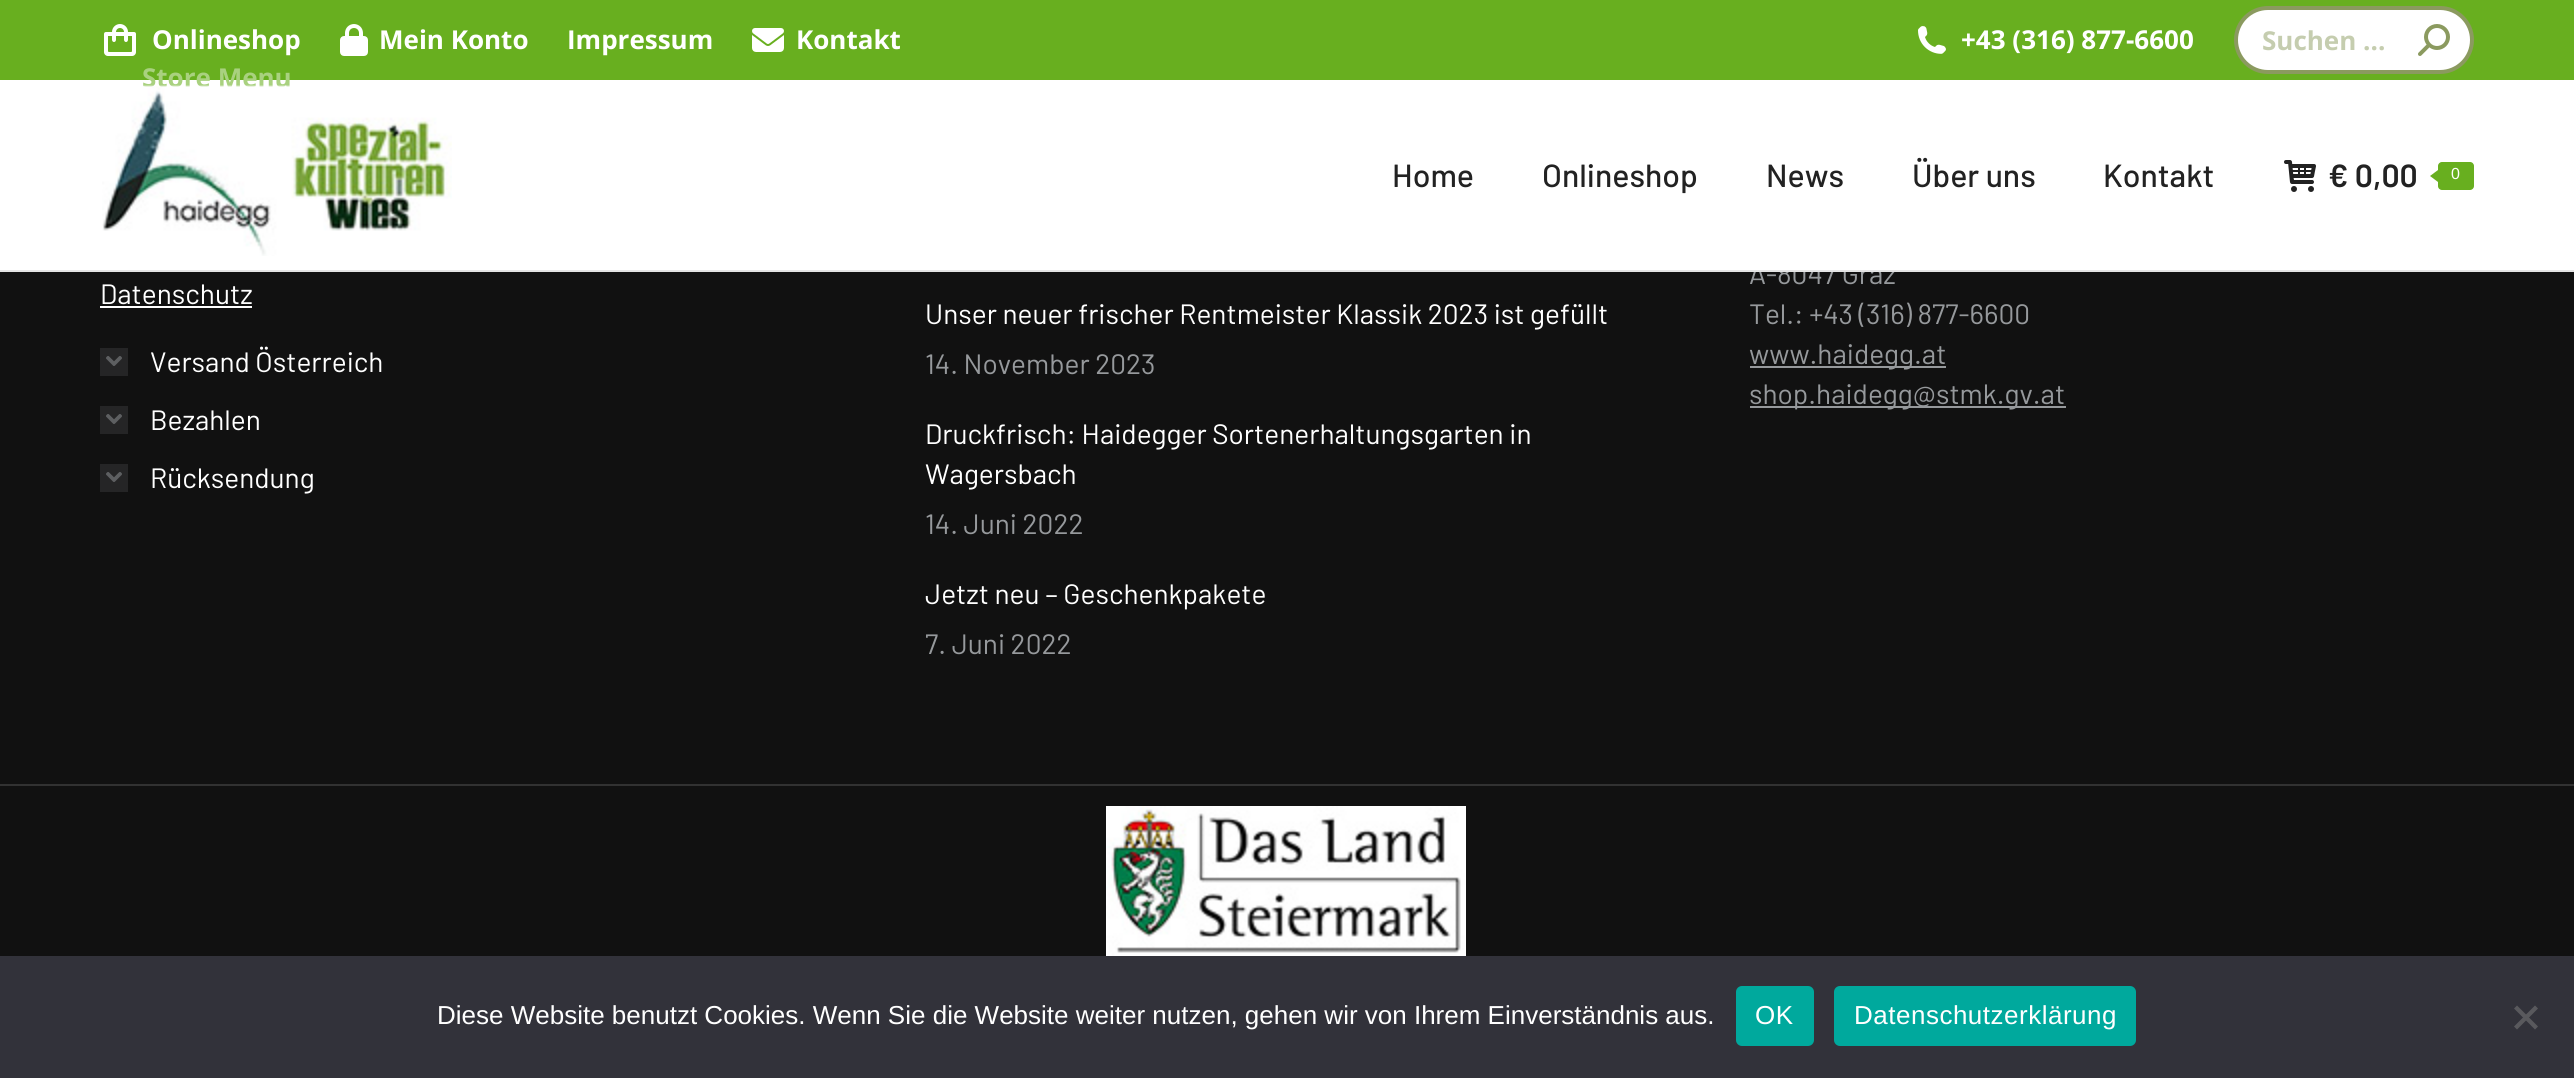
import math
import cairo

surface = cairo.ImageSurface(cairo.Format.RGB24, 2574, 1078)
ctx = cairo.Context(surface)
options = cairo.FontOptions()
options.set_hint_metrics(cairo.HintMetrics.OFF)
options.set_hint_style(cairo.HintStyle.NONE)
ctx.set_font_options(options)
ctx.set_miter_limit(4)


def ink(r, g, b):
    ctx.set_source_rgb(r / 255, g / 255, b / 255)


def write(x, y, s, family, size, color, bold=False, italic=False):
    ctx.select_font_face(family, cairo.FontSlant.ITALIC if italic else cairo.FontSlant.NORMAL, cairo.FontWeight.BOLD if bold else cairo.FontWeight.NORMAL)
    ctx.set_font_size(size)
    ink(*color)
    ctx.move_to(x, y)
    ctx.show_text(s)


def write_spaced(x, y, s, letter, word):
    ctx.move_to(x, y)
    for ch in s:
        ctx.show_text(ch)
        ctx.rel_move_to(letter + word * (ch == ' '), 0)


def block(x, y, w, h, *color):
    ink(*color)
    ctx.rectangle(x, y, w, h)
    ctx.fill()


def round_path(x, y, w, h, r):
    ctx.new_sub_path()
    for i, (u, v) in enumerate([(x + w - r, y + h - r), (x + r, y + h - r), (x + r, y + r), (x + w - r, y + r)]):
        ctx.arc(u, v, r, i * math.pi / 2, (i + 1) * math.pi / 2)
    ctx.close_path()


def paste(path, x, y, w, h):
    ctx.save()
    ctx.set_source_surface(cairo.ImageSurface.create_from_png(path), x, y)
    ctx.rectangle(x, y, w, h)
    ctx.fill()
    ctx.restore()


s1 = dict(family="Barlow", size=28, color=(150, 153, 156))
s2 = dict(family="Open Sans", size=26, color=(255, 255, 255), bold=True)
s3 = dict(family="Open Sans", size=26, color=(169, 209, 127), bold=True)
s4 = dict(family="Open Sans", size=26, color=(197, 205, 175), bold=True)
s5 = dict(family="Barlow Medium", size=32, color=(34, 34, 34))
s6 = dict(family="Barlow SemiBold", size=32, color=(34, 34, 34))
s7 = dict(family="Liberation Sans", size=16, color=(255, 255, 255))
s8 = dict(family="Barlow", size=28, color=(255, 255, 255))
s9 = dict(family="Liberation Sans", size=26, color=(255, 255, 255))

ink(17, 17, 17)
ctx.paint()
write(1749, 284, "A-8047 Graz", **s1)
block(0, 80, 2574, 190, 255, 255, 255)
block(0, 270, 2574, 2, 228, 228, 228)
block(0, 0, 2574, 80, 104, 175, 31)
paste("pic1.png", 104, 24, 32, 32)
write(152, 49, "Onlineshop", **s2)
paste("pic2.png", 340, 24, 28, 32)
write(379, 49, "Mein Konto", **s2)
write(567, 49, "Impressum", **s2)
paste("pic3.png", 752, 28, 32, 24)
write(796, 49, "Kontakt", **s2)
write(142, 87, "Store Menu", **s3)
paste("pic4.png", 1918, 26, 28, 28)
write(1961, 49, "+43 (316) 877-6600", **s2)
round_path(2236, 8, 236, 64, 32)
ctx.fill_preserve()
ink(139, 154, 95)
ctx.set_line_width(4)
ctx.stroke()
write(2262, 50, "Suchen ...", **s4)
paste("pic5.png", 2418, 24, 32, 32)
paste("pic6.png", 102, 85, 350, 171)
write(1392, 187, "Home", **s5)
write(1542, 187, "Onlineshop", **s5)
write(1766, 187, "News", **s5)
write(1912, 187, "Über uns", **s5)
write(2103, 187, "Kontakt", **s5)
paste("pic7.png", 2284, 160, 32, 32)
write(2328, 187, "€ 0,00", **s6)
ink(104, 175, 31)
round_path(2438, 162, 36, 28, 4)
ctx.fill()
ctx.new_path()
ctx.move_to(2438, 170)
ctx.line_to(2438, 182)
ctx.line_to(2430, 176)
ctx.close_path()
ctx.fill()
write(2451, 179, "0", **s7)
write(100, 304, "Datenschutz", **s8)
block(100, 306, 152, 2, 255, 255, 255)
block(100, 348, 28, 28, 37, 37, 38)
write(150, 372, "Versand Österreich", **s8)
paste("pic8.png", 106, 356, 16, 10)
block(100, 406, 28, 28, 37, 37, 38)
write(150, 430, "Bezahlen", **s8)
paste("pic8.png", 106, 414, 16, 10)
block(100, 464, 28, 28, 37, 37, 38)
write(150, 488, "Rücksendung", **s8)
paste("pic8.png", 106, 472, 16, 10)
write(925, 324, "Unser neuer frischer Rentmeister Klassik 2023 ist gefüllt", **s8)
write(925, 374, "14. November 2023", **s1)
write(925, 444, "Druckfrisch: Haidegger Sortenerhaltungsgarten in", **s8)
write(925, 484, "Wagersbach", **s8)
write(925, 534, "14. Juni 2022", **s1)
write(925, 604, "Jetzt neu – Geschenkpakete", **s8)
write(925, 654, "7. Juni 2022", **s1)
write(1749, 324, "Tel.: +43 (316) 877-6600", **s1)
block(1750, 366, 196, 2, 150, 153, 156)
write(1749, 364, "www.haidegg.at", **s1)
block(1750, 406, 316, 2, 150, 153, 156)
write(1749, 404, "shop.haidegg@stmk.gv.at", **s1)
block(0, 784, 2574, 2, 50, 50, 50)
paste("pic9.png", 1106, 806, 360, 150)
block(0, 956, 2574, 122, 50, 50, 58)
write(437, 1024, "Diese Website benutzt Cookies. Wenn Sie die Website weiter nutzen, gehen wir von Ihrem Einverständnis aus.", **s9)
ink(0, 169, 157)
round_path(1736, 986, 78, 60, 6)
ctx.fill()
ink(255, 255, 255)
write_spaced(1755, 1024, "OK", 0.5, 0)
ink(0, 169, 157)
round_path(1834, 986, 302, 60, 6)
ctx.fill()
ink(255, 255, 255)
write_spaced(1854, 1024, "Datenschutzerklärung", 0.5, 0)
ink(89, 89, 93)
ctx.new_path()
ctx.move_to(2535, 1005.5)
ctx.line_to(2538, 1008.5)
ctx.line_to(2517, 1029.5)
ctx.line_to(2514, 1026.5)
ctx.close_path()
ctx.fill()
ctx.new_path()
ctx.move_to(2514, 1008.5)
ctx.line_to(2517, 1005.5)
ctx.line_to(2538, 1026.5)
ctx.line_to(2535, 1029.5)
ctx.close_path()
ctx.fill()
surface.write_to_png("screenshot.png")
